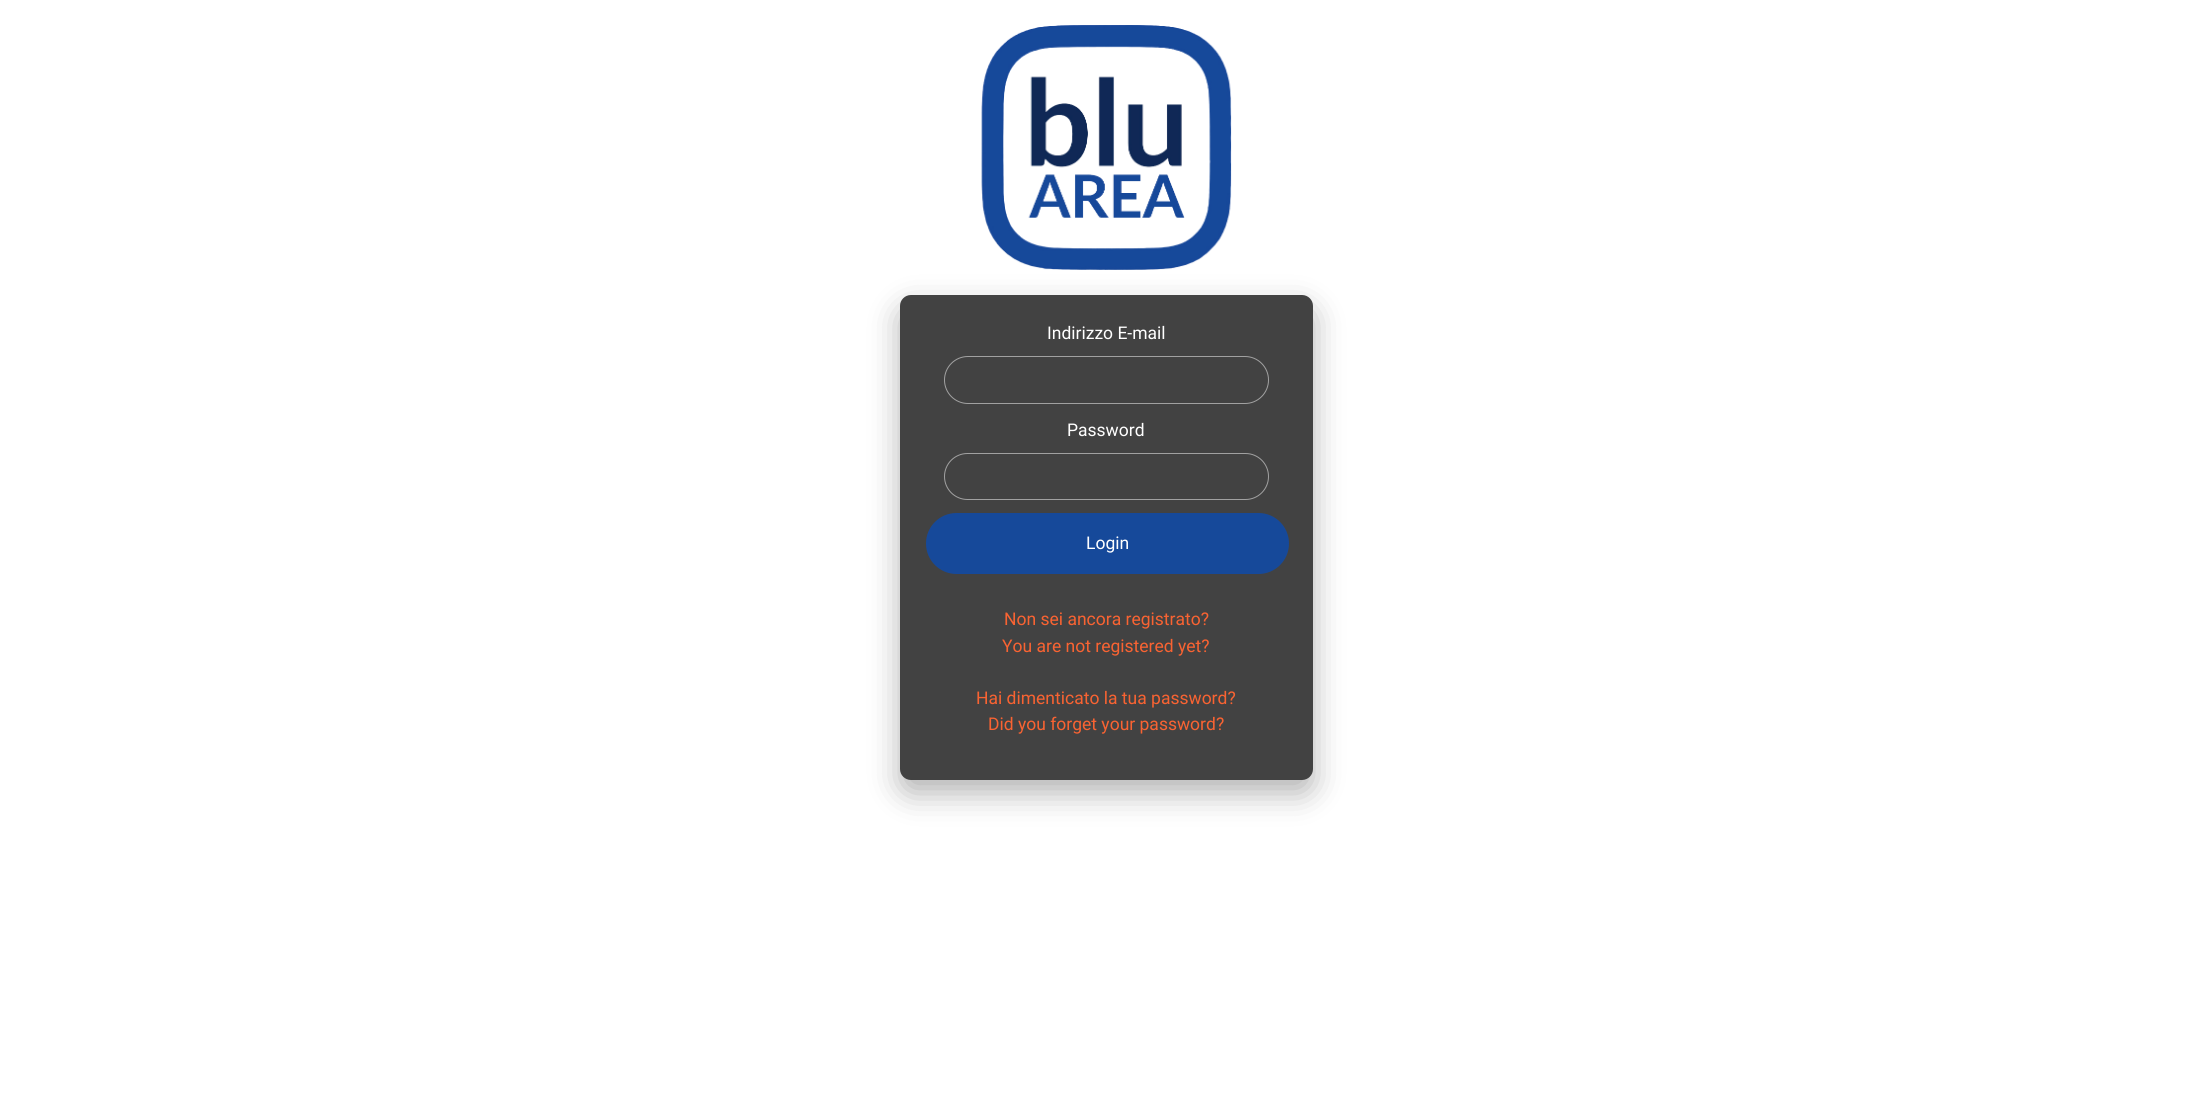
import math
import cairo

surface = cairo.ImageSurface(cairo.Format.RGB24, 2212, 1117)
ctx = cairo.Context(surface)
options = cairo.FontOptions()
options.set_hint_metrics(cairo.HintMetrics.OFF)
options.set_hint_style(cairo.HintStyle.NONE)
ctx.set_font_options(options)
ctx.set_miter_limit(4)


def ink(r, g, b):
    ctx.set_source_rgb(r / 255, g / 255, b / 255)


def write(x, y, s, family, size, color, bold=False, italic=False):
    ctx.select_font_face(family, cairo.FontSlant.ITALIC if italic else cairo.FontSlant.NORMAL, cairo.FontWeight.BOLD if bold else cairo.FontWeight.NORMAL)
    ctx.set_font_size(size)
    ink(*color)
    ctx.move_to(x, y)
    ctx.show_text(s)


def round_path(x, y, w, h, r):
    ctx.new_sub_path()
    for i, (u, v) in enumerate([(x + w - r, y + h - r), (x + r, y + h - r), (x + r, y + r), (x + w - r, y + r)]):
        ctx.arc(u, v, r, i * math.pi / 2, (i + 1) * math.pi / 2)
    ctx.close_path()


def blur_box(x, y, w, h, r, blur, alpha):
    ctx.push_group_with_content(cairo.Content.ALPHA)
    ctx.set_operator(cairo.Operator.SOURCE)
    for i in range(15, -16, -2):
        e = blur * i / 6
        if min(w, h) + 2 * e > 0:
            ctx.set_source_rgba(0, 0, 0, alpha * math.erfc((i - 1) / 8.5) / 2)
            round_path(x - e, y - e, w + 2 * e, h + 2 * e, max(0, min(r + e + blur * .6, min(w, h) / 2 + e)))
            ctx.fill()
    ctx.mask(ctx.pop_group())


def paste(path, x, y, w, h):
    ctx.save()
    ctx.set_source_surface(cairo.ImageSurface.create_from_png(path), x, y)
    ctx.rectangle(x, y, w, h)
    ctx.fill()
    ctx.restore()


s1 = dict(family="Roboto", size=17.5, color=(255, 255, 255))
s2 = dict(family="Roboto", size=17.5, color=(249, 99, 50))

ink(255, 255, 255)
ctx.paint()
paste("pic1.png", 981, 25, 251, 245)
ink(0, 0, 0)
blur_box(900, 308, 413, 485, 11, 15.5, 0.3)
ink(66, 66, 66)
round_path(900, 295, 413, 485, 11)
ctx.fill()
write(1047, 339, "Indirizzo E-mail", **s1)
round_path(944.5, 356.5, 324, 47, 23.5)
ink(161, 161, 161)
ctx.set_line_width(1)
ctx.stroke()
write(1067, 436, "Password", **s1)
round_path(944.5, 453.5, 324, 46, 23)
ink(161, 161, 161)
ctx.stroke()
ink(22, 73, 154)
round_path(926, 513, 363, 61, 30.5)
ctx.fill()
write(1086, 549, "Login", **s1)
write(1004, 625, "Non sei ancora registrato?", **s2)
write(1002, 652, "You are not registered yet?", **s2)
write(976, 704, "Hai dimenticato la tua password?", **s2)
write(988, 730, "Did you forget your password?", **s2)
surface.write_to_png("screenshot.png")
